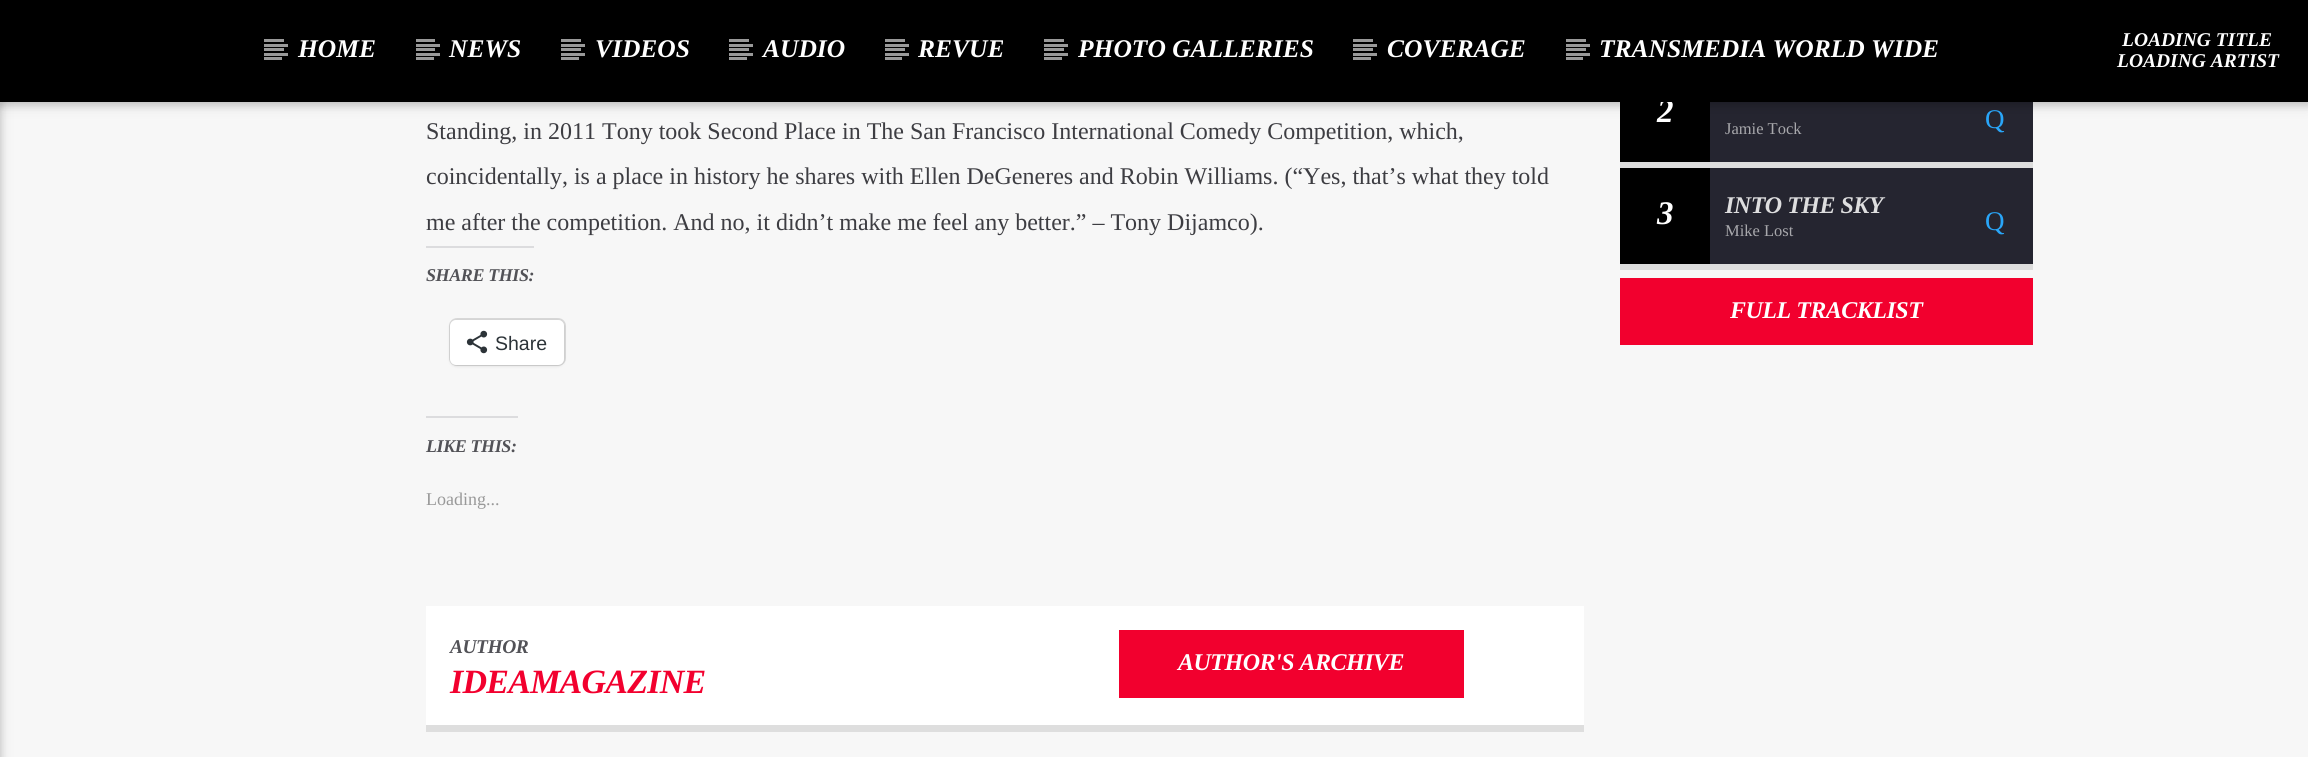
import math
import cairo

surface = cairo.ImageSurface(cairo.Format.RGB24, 2308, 757)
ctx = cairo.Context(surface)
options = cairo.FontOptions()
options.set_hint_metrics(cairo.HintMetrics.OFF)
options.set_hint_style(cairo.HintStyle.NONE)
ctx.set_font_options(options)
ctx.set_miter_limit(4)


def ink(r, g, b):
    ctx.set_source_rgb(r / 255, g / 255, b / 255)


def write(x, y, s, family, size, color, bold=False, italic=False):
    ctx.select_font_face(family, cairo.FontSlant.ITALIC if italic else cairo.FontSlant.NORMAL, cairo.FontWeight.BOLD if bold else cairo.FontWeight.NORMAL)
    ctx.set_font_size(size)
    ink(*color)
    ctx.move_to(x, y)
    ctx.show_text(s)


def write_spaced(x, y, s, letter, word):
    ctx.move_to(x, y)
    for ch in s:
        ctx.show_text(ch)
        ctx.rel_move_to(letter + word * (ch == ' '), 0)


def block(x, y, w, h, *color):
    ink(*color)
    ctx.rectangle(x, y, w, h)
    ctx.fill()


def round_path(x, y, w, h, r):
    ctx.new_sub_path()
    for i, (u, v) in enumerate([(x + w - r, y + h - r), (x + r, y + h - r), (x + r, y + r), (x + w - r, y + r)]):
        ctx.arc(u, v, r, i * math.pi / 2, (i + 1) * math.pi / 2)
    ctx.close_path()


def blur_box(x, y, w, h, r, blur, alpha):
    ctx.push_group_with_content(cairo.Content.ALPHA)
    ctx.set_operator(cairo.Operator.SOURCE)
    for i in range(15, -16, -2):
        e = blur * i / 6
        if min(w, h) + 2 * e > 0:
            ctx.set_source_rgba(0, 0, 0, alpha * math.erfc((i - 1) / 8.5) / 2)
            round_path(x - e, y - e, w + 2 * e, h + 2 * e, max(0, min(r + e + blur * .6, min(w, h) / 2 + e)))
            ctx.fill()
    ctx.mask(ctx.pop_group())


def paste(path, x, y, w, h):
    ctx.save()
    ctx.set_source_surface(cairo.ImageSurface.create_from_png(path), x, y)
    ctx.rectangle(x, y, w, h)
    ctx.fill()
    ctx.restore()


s1 = dict(family="Liberation Serif", size=25.5, color=(255, 255, 255), bold=True, italic=True)
s2 = dict(family="Liberation Serif", size=19.5, color=(255, 255, 255), bold=True, italic=True)
s3 = dict(family="Liberation Serif", size=24, color=(61, 61, 66))
s4 = dict(family="Liberation Sans", size=19.5, color=(44, 51, 56))
s5 = dict(family="Liberation Serif", size=18, color=(153, 153, 153))
s6 = dict(family="Liberation Serif", size=16.5, color=(168, 168, 172))
s7 = dict(family="Liberation Serif", size=27, color=(41, 166, 249))

ink(247, 247, 247)
ctx.paint()
ink(222, 222, 222)
ctx.new_path()
ctx.move_to(1620, 164)
ctx.line_to(1620, 168)
ctx.line_to(2033, 168)
ctx.line_to(2033, 71)
ctx.line_to(2032, 71)
ctx.line_to(2032, 164)
ctx.close_path()
ctx.fill()
block(1710, 102, 323, 60, 37, 37, 48)
block(1620, 102, 90, 60, 0, 0, 0)
ink(0, 0, 0)
blur_box(0, 3, 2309, 102, 0, 7.5, 0.12)
blur_box(0, 3, 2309, 102, 0, 4, 0.16)
ctx.select_font_face("Liberation Serif", cairo.FontSlant.ITALIC, cairo.FontWeight.BOLD)
ctx.set_font_size(33)
ink(255, 255, 255)
write_spaced(1657, 122, "2", -1, 0)
block(0, 0, 2308, 102, 0, 0, 0)
ink(0, 0, 0)
blur_box(-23, 3, 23, 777, 0, 7.5, 0.12)
blur_box(-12, 3, 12, 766, 0, 4, 0.16)
block(264, 39, 20, 3, 153, 153, 153)
block(264, 48, 20, 3, 153, 153, 153)
write(298, 57, "HOME", **s1)
block(264, 44, 24, 3, 153, 153, 153)
block(264, 53, 24, 3, 153, 153, 153)
block(264, 57, 18, 3, 153, 153, 153)
block(416, 39, 19, 3, 153, 153, 153)
block(416, 48, 19, 3, 153, 153, 153)
write(449, 57, "NEWS", **s1)
block(416, 44, 24, 3, 153, 153, 153)
block(416, 53, 24, 3, 153, 153, 153)
block(416, 57, 18, 3, 153, 153, 153)
block(561, 39, 20, 3, 153, 153, 153)
block(561, 48, 20, 3, 153, 153, 153)
write(595, 57, "VIDEOS", **s1)
block(561, 44, 24, 3, 153, 153, 153)
block(561, 53, 24, 3, 153, 153, 153)
block(561, 57, 18, 3, 153, 153, 153)
block(729, 39, 20, 3, 153, 153, 153)
block(729, 48, 20, 3, 153, 153, 153)
write(763, 57, "AUDIO", **s1)
block(729, 44, 24, 3, 153, 153, 153)
block(729, 53, 24, 3, 153, 153, 153)
block(729, 57, 18, 3, 153, 153, 153)
block(885, 39, 20, 3, 153, 153, 153)
block(885, 48, 20, 3, 153, 153, 153)
write(918, 57, "REVUE", **s1)
block(885, 44, 24, 3, 153, 153, 153)
block(885, 53, 24, 3, 153, 153, 153)
block(885, 57, 17, 3, 153, 153, 153)
block(1044, 39, 20, 3, 153, 153, 153)
block(1044, 48, 20, 3, 153, 153, 153)
write(1078, 57, "PHOTO GALLERIES", **s1)
block(1044, 44, 24, 3, 153, 153, 153)
block(1044, 53, 24, 3, 153, 153, 153)
block(1044, 57, 18, 3, 153, 153, 153)
block(1353, 39, 20, 3, 153, 153, 153)
block(1353, 48, 20, 3, 153, 153, 153)
write(1387, 57, "COVERAGE", **s1)
block(1353, 44, 24, 3, 153, 153, 153)
block(1353, 53, 24, 3, 153, 153, 153)
block(1353, 57, 18, 3, 153, 153, 153)
block(1566, 39, 20, 3, 153, 153, 153)
block(1566, 48, 20, 3, 153, 153, 153)
write(1599, 57, "TRANSMEDIA WORLD WIDE", **s1)
block(1566, 44, 24, 3, 153, 153, 153)
block(1566, 53, 24, 3, 153, 153, 153)
block(1566, 57, 17, 3, 153, 153, 153)
write(2122, 46, "LOADING TITLE", **s2)
write(2117, 67, "LOADING ARTIST", **s2)
write(426, 139, "Standing, in 2011 Tony took Second Place in The San Francisco International Comedy Competition, which,", **s3)
write(426, 184, "coincidentally, is a place in history he shares with Ellen DeGeneres and Robin Williams. (“Yes, that’s what they told", **s3)
write(426, 230, "me after the competition. And no, it didn’t make me feel any better.” – Tony Dijamco).", **s3)
block(426, 246, 108, 2, 220, 220, 222)
ctx.select_font_face("Liberation Serif", cairo.FontSlant.ITALIC, cairo.FontWeight.BOLD)
ctx.set_font_size(18)
ink(82, 82, 87)
write_spaced(426, 281, "SHARE THIS:", -0.4, 0)
round_path(450, 319, 115, 46, 7)
ink(217, 217, 217)
ctx.stroke()
ink(0, 0, 0)
blur_box(450, 321, 114, 45, 6, 1.5, 0.12)
ink(255, 255, 255)
round_path(450, 320, 114, 45, 6)
ctx.fill()
paste("pic1.png", 466, 330, 22, 24)
write(495, 350, "Share", **s4)
block(426, 416, 92, 2, 220, 220, 222)
ctx.select_font_face("Liberation Serif", cairo.FontSlant.ITALIC, cairo.FontWeight.BOLD)
ctx.set_font_size(18)
ink(82, 82, 87)
write_spaced(426, 452, "LIKE THIS:", -0.4, 0)
write(426, 505, "Loading...", **s5)
block(426, 725, 1158, 7, 222, 222, 222)
block(426, 606, 1158, 119, 255, 255, 255)
ctx.select_font_face("Liberation Serif", cairo.FontSlant.ITALIC, cairo.FontWeight.BOLD)
ctx.set_font_size(19.5)
ink(82, 82, 87)
write_spaced(450, 653, "AUTHOR", -0.5, 0)
ctx.set_font_size(34)
ink(242, 0, 46)
write_spaced(450, 693, "IDEAMAGAZINE", -0.75, 0)
block(1119, 630, 345, 68, 242, 0, 46)
ctx.set_font_size(24)
ink(255, 255, 255)
write_spaced(1178, 670, "AUTHOR'S ARCHIVE", -0.5, 0)
block(1620, 162, 413, 2, 221, 221, 221)
write(1725, 134, "Jamie Tock", **s6)
write(1985, 128, "Q", **s7)
ink(222, 222, 222)
ctx.new_path()
ctx.move_to(1620, 266)
ctx.line_to(1620, 270)
ctx.line_to(2033, 270)
ctx.line_to(2033, 173)
ctx.line_to(2032, 173)
ctx.line_to(2032, 266)
ctx.close_path()
ctx.fill()
block(1710, 168, 323, 96, 37, 37, 48)
block(1620, 264, 413, 2, 221, 221, 221)
block(1620, 168, 90, 96, 0, 0, 0)
ctx.select_font_face("Liberation Serif", cairo.FontSlant.ITALIC, cairo.FontWeight.BOLD)
ctx.set_font_size(33)
ink(255, 255, 255)
write_spaced(1657, 224, "3", -1, 0)
ctx.set_font_size(24)
ink(222, 222, 223)
write_spaced(1725, 213, "INTO THE SKY", -0.5, 0)
write(1725, 236, "Mike Lost", **s6)
write(1985, 230, "Q", **s7)
block(1620, 278, 413, 67, 242, 0, 46)
ctx.select_font_face("Liberation Serif", cairo.FontSlant.ITALIC, cairo.FontWeight.BOLD)
ctx.set_font_size(24)
ink(255, 255, 255)
write_spaced(1730, 318, "FULL TRACKLIST", -0.5, 0)
surface.write_to_png("screenshot.png")
